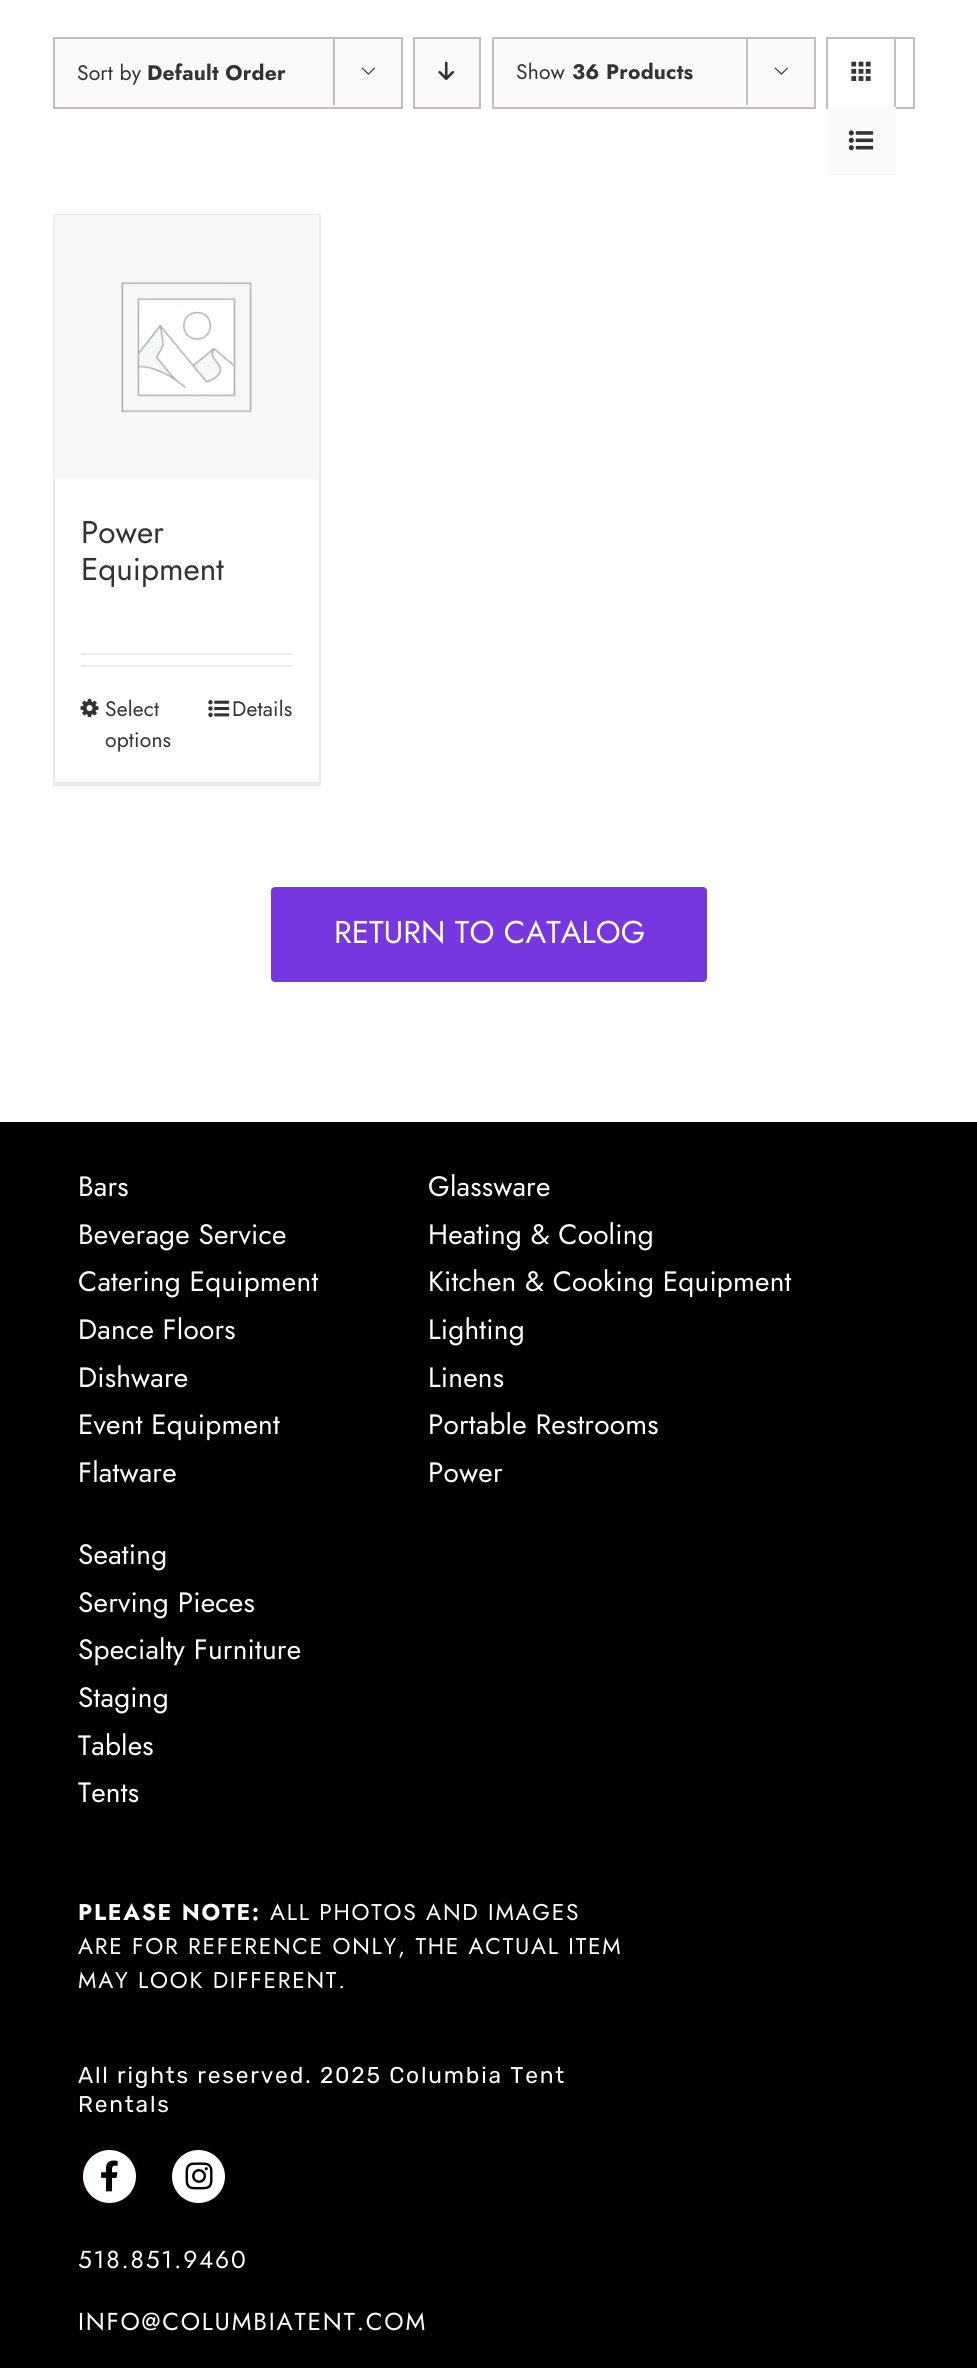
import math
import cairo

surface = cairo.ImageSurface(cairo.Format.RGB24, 977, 2368)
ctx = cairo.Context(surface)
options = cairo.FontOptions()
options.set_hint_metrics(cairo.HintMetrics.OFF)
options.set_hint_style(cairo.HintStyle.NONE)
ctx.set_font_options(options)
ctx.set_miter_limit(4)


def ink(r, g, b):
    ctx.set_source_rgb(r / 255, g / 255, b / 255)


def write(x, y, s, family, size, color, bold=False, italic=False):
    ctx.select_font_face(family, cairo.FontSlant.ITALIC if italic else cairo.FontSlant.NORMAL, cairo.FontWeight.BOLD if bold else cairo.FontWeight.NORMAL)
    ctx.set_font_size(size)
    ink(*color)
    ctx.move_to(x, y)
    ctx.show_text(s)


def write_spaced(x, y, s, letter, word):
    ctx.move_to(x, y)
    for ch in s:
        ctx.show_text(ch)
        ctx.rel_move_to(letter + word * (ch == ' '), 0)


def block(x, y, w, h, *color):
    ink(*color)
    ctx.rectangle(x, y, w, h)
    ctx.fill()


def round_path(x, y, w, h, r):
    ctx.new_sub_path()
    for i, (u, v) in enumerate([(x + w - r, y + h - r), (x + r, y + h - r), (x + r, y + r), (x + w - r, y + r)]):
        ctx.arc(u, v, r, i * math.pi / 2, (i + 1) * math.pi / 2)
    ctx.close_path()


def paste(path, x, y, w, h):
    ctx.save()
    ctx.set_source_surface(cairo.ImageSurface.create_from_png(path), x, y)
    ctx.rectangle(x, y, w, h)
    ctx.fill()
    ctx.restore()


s1 = dict(family="Jost", size=31.5, color=(51, 51, 51))
s2 = dict(family="Jost", size=31.5, color=(255, 255, 255))

ink(255, 255, 255)
ctx.paint()
ink(251, 250, 249)
ctx.rectangle(54, 38, 348, 70)
ctx.fill_preserve()
ink(191, 191, 191)
ctx.stroke()
ctx.select_font_face("Jost")
ctx.set_font_size(21)
ink(51, 51, 51)
write_spaced(77, 80, "Sort by", 0.2, 0)
ctx.select_font_face("Jost", cairo.FontSlant.NORMAL, cairo.FontWeight.BOLD)
write_spaced(147, 80, "Default Order", 0.2, 0)
block(333, 37, 2, 68, 191, 191, 191)
paste("pic1.png", 361, 67, 15, 8)
ink(251, 250, 249)
ctx.rectangle(414, 38, 66, 70)
ctx.fill_preserve()
ink(191, 191, 191)
ctx.stroke()
paste("pic2.png", 438, 61, 17, 19)
ink(251, 250, 249)
ctx.rectangle(493, 38, 322, 70)
ctx.fill_preserve()
ink(191, 191, 191)
ctx.stroke()
ctx.select_font_face("Jost")
ink(51, 51, 51)
write_spaced(516, 79, "Show", 0.2, 0)
ctx.select_font_face("Jost", cairo.FontSlant.NORMAL, cairo.FontWeight.BOLD)
write_spaced(572, 79, "36 Products", 0.2, 0)
block(746, 37, 2, 68, 191, 191, 191)
paste("pic1.png", 774, 67, 15, 8)
ctx.rectangle(827, 38, 87, 70)
ctx.stroke()
block(894, 39, 2, 68, 191, 191, 191)
paste("pic3.png", 851, 61, 20, 20)
block(828, 107, 68, 68, 251, 250, 249)
paste("pic4.png", 848, 130, 26, 21)
block(53, 214, 267, 2, 235, 234, 234)
block(319, 214, 2, 572, 235, 234, 234)
block(53, 782, 267, 4, 235, 234, 234)
block(53, 214, 2, 572, 235, 234, 234)
paste("pic5.png", 54, 215, 265, 264)
write(81, 543, "Power", **s1)
write(81, 580, "Equipment", **s1)
block(81, 653, 211, 2, 235, 234, 234)
block(81, 665, 211, 2, 235, 234, 234)
paste("pic6.png", 80, 699, 19, 19)
ctx.set_font_size(21)
ink(51, 51, 51)
write_spaced(105, 716, "Select", 0.2, 0)
write_spaced(105, 747, "options", 0.2, 0)
paste("pic7.png", 208, 700, 22, 18)
write_spaced(232, 716, "Details", 0.2, 0)
ink(118, 55, 225)
round_path(271, 887, 436, 95, 4)
ctx.fill()
write(334, 943, "RETURN TO CATALOG", **s2)
block(0, 1122, 977, 1246, 0, 0, 0)
ctx.set_font_size(28)
ink(255, 255, 255)
write_spaced(78, 1196, "Bars", 0.2, 0)
write_spaced(78, 1244, "Beverage Service", 0.2, 0)
write_spaced(78, 1291, "Catering Equipment", 0.2, 0)
write_spaced(78, 1339, "Dance Floors", 0.2, 0)
write_spaced(78, 1387, "Dishware", 0.2, 0)
write_spaced(78, 1434, "Event Equipment", 0.2, 0)
write_spaced(78, 1482, "Flatware", 0.2, 0)
write_spaced(428, 1196, "Glassware", 0.2, 0)
write_spaced(428, 1244, "Heating & Cooling", 0.2, 0)
write_spaced(428, 1291, "Kitchen & Cooking Equipment", 0.2, 0)
write_spaced(428, 1339, "Lighting", 0.2, 0)
write_spaced(428, 1387, "Linens", 0.2, 0)
write_spaced(428, 1434, "Portable Restrooms", 0.2, 0)
write_spaced(428, 1482, "Power", 0.2, 0)
write_spaced(78, 1564, "Seating", 0.2, 0)
write_spaced(78, 1612, "Serving Pieces", 0.2, 0)
write_spaced(78, 1659, "Specialty Furniture", 0.2, 0)
write_spaced(78, 1707, "Staging", 0.2, 0)
write_spaced(78, 1755, "Tables", 0.2, 0)
write_spaced(78, 1802, "Tents", 0.2, 0)
ctx.select_font_face("Jost", cairo.FontSlant.NORMAL, cairo.FontWeight.BOLD)
ctx.set_font_size(22.75)
write_spaced(78, 1920, "PLEASE NOTE:", 1.75, 0)
ctx.select_font_face("Jost")
write_spaced(270, 1920, "ALL PHOTOS AND IMAGES", 1.75, 0)
write_spaced(78, 1954, "ARE FOR REFERENCE ONLY, THE ACTUAL ITEM", 1.75, 0)
write_spaced(78, 1988, "MAY LOOK DIFFERENT.", 1.75, 0)
ctx.select_font_face("Rubik")
write_spaced(78, 2083, "All rights reserved. 2025 Columbia Tent", 1.8, 0)
write_spaced(78, 2112, "Rentals", 1.8, 0)
ctx.new_path()
ctx.arc(109.5, 2176.5, 28.5, 0, 2 * math.pi)
ctx.fill_preserve()
ink(10, 2, 2)
ctx.set_line_width(4)
ctx.stroke()
paste("pic8.png", 101, 2160, 17, 32)
ink(255, 255, 255)
ctx.arc(198.5, 2176.5, 28.5, 0, 2 * math.pi)
ctx.fill_preserve()
ink(0, 0, 0)
ctx.stroke()
paste("pic9.png", 185, 2162, 28, 28)
ctx.select_font_face("Jost")
ctx.set_font_size(24.5)
ink(255, 255, 255)
write_spaced(78, 2268, "518.851.9460", 1.75, 0)
write_spaced(78, 2330, "INFO@COLUMBIATENT.COM", 1.75, 0)
surface.write_to_png("screenshot.png")
